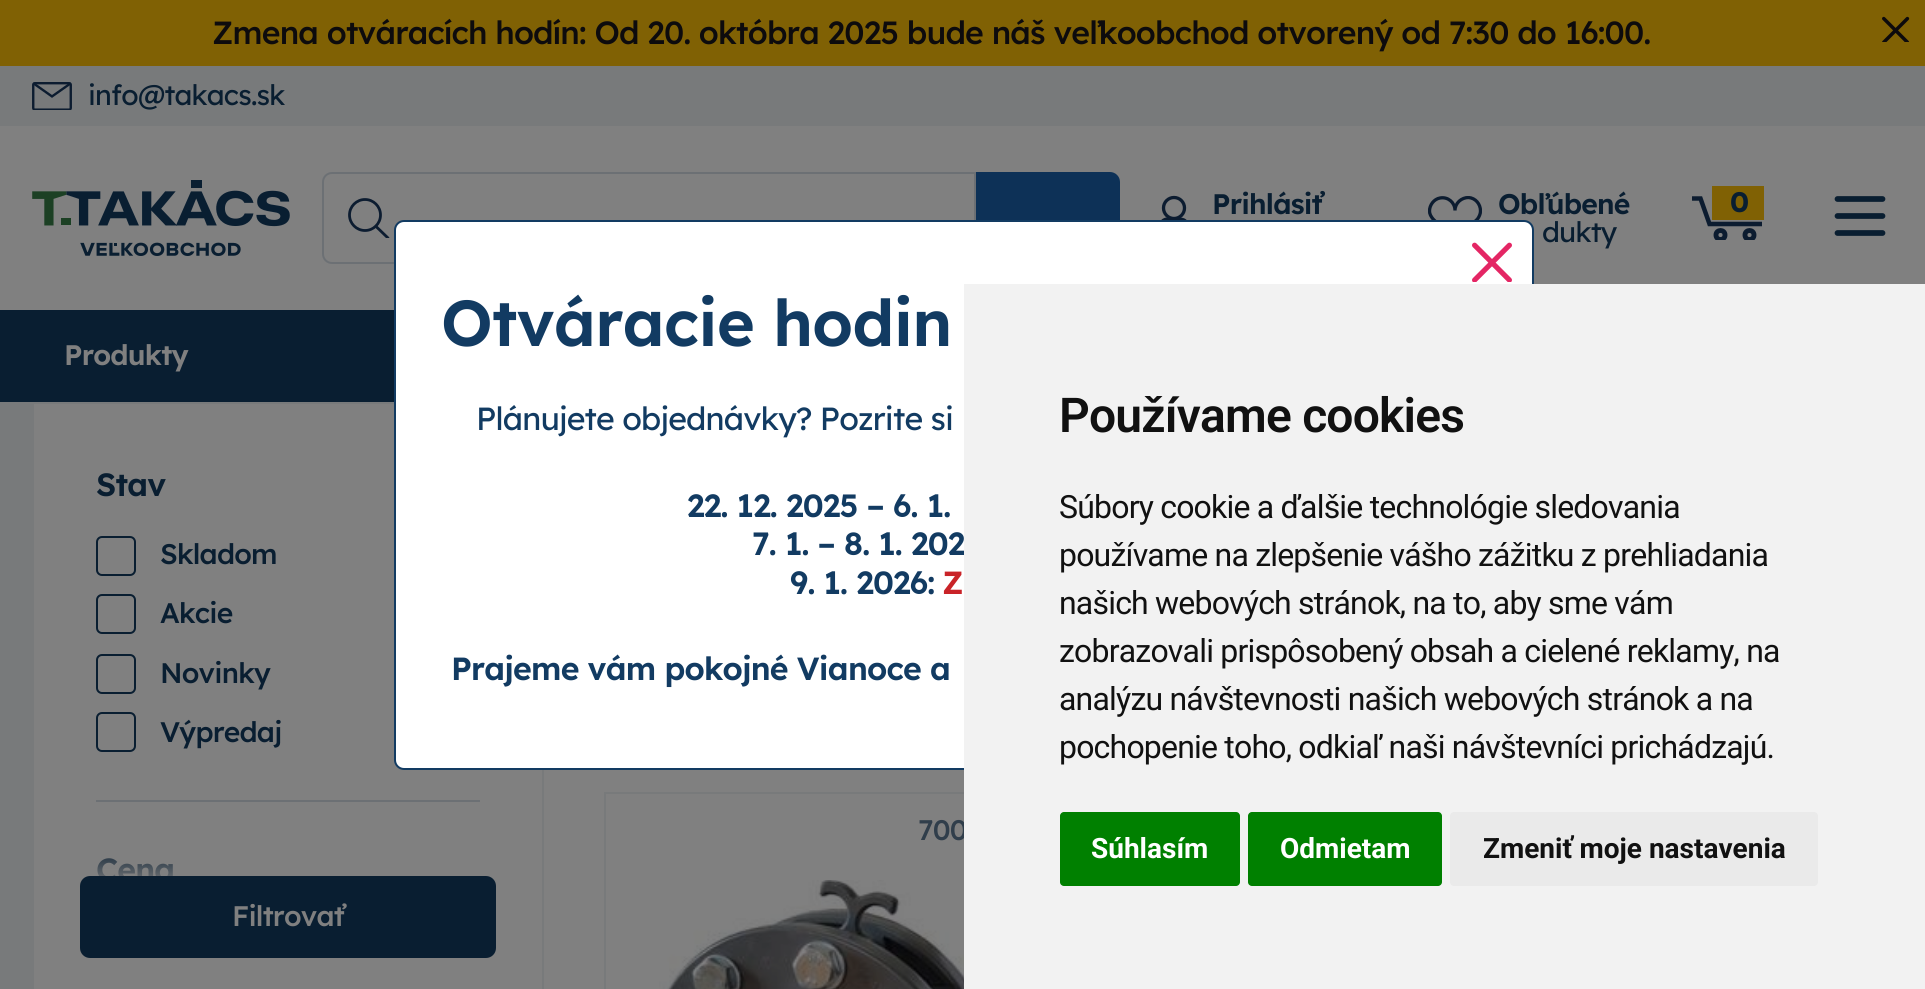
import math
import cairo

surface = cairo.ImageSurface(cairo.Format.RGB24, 1925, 989)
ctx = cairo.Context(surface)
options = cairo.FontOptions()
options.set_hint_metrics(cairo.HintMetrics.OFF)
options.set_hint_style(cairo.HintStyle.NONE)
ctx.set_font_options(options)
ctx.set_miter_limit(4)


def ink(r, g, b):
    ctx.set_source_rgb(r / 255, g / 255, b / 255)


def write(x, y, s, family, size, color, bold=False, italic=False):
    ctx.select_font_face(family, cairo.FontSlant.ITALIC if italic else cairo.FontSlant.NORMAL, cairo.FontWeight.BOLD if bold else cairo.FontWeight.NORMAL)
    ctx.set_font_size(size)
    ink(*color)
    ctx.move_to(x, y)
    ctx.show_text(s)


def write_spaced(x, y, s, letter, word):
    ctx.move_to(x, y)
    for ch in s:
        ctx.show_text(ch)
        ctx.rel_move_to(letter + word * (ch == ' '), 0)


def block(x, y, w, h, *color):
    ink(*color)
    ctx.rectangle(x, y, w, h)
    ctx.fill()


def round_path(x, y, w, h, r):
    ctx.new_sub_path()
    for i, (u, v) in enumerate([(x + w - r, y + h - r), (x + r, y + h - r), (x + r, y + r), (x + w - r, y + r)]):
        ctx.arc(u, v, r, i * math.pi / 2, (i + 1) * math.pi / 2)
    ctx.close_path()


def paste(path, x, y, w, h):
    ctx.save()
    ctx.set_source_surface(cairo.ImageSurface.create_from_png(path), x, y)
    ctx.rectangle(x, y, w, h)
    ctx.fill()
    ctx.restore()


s1 = dict(family="Roboto", size=28, color=(255, 255, 255), bold=True)
s2 = dict(family="Roboto", size=28, color=(17, 17, 17), bold=True)

ink(120, 122, 123)
ctx.paint()
block(0, 0, 1925, 66, 128, 97, 4)
ctx.select_font_face("Lexend Medium")
ctx.set_font_size(32)
ink(13, 11, 13)
write_spaced(212, 44, "Zmena otváracích hodín: Od 20. októbra 2025 bude náš veľkoobchod otvorený od 7:30 do 16:00.", -0.8, 0)
paste("pic1.png", 1882, 16, 28, 26)
paste("pic2.png", 32, 82, 40, 28)
ctx.select_font_face("Lexend")
ctx.set_font_size(28.25)
ink(9, 30, 49)
write_spaced(88, 105, "info@takacs.sk", -0.8, 0)
block(0, 126, 1925, 184, 128, 128, 128)
paste("pic3.png", 32, 180, 258, 76)
ctx.arc(365, 215, 15.5, 0, 2 * math.pi)
ink(12, 28, 48)
ctx.set_line_width(2.8)
ctx.stroke()
ctx.save()
ctx.rectangle(348, 198, 42, 40)
ctx.clip()
ctx.new_path()
ctx.move_to(375, 225.5)
ctx.line_to(388.5, 238.5)
ctx.stroke()
ctx.restore()
ctx.new_path()
ctx.move_to(332, 173)
ctx.line_to(975, 173)
ctx.line_to(975, 263)
ctx.line_to(332, 263)
ctx.curve_to(327, 263, 323, 259, 323, 254)
ctx.line_to(323, 182)
ctx.curve_to(323, 177, 327, 173, 332, 173)
ctx.close_path()
ink(108, 112, 116)
ctx.set_line_width(2)
ctx.stroke()
ink(13, 49, 87)
ctx.new_path()
ctx.move_to(976, 172)
ctx.line_to(1110, 172)
ctx.curve_to(1115.5, 172, 1120, 176.5, 1120, 182)
ctx.line_to(1120, 254)
ctx.curve_to(1120, 259.5, 1115.5, 264, 1110, 264)
ctx.line_to(976, 264)
ctx.close_path()
ctx.fill()
ctx.arc(1174, 208, 10.5, 0, 2 * math.pi)
ink(12, 28, 48)
ctx.set_line_width(3.3)
ctx.stroke()
ctx.new_path()
ctx.move_to(1174, 219)
ctx.curve_to(1188, 219, 1185, 220, 1191.5, 233.5)
ctx.curve_to(1195, 241, 1196.5, 239.5, 1187, 239.5)
ctx.line_to(1161, 239.5)
ctx.curve_to(1153.5, 239.5, 1152.5, 241.5, 1155.5, 236)
ctx.line_to(1162, 221.5)
ctx.curve_to(1165, 218, 1170.5, 219, 1174, 219)
ctx.stroke()
ctx.select_font_face("Lexend SemiBold")
ink(9, 30, 49)
write_spaced(1212, 214, "Prihlásiť", -0.8, 0)
ctx.save()
ctx.rectangle(1428, 196, 54, 44)
ctx.clip()
ctx.new_path()
ctx.move_to(1455, 210.5)
ctx.curve_to(1455, 202.5, 1448, 196.5, 1440, 198)
ctx.curve_to(1434, 199, 1429.5, 205, 1429.5, 211)
ctx.curve_to(1429.5, 214, 1431, 216.5, 1433, 219)
ctx.line_to(1452.5, 238.5)
ctx.curve_to(1454, 240, 1456.5, 240, 1457.5, 238.5)
ctx.line_to(1477.5, 219)
ctx.curve_to(1479, 217, 1480.5, 214, 1480.5, 211)
ctx.curve_to(1480.5, 204, 1475.5, 198, 1468.5, 197.5)
ctx.curve_to(1461.5, 197.5, 1455, 203, 1455, 210.5)
ink(12, 28, 48)
ctx.stroke()
ctx.restore()
write_spaced(1498, 214, "Obľúbené", -0.8, 0)
ctx.select_font_face("Lexend")
write_spaced(1542, 242, "dukty", -0.8, 0)
ctx.new_path()
ctx.move_to(1692, 198.5)
ctx.line_to(1700.5, 198.5)
ctx.line_to(1709.5, 224)
ctx.line_to(1762, 224)
ink(12, 28, 48)
ctx.set_line_width(4.5)
ctx.stroke()
block(1712, 186, 52, 34, 128, 97, 4)
ctx.select_font_face("Lexend", cairo.FontSlant.NORMAL, cairo.FontWeight.BOLD)
ink(9, 30, 49)
write_spaced(1730, 212, "0", -0.8, 0)
ctx.save()
ctx.rectangle(1692, 196, 70, 44)
ctx.clip()
ctx.arc(1720.5, 235, 4.5, 0, 2 * math.pi)
ink(12, 28, 48)
ctx.set_line_width(4.9)
ctx.stroke()
ctx.arc(1749.5, 235, 4.5, 0, 2 * math.pi)
ctx.stroke()
ctx.restore()
ctx.new_path()
ctx.move_to(1837.5, 199)
ctx.line_to(1882.5, 199)
ctx.move_to(1837.5, 216)
ctx.line_to(1882.5, 216)
ctx.move_to(1837.5, 233)
ctx.line_to(1882.5, 233)
ctx.set_line_width(5.7)
ctx.set_line_cap(cairo.LineCap.ROUND)
ctx.set_line_join(cairo.LineJoin.ROUND)
ctx.stroke()
block(0, 310, 394, 92, 9, 30, 49)
ctx.select_font_face("Lexend SemiBold")
ink(128, 128, 128)
write_spaced(64, 365, "Produkty", -0.8, 0)
block(34, 404, 508, 585, 128, 128, 128)
ink(255, 255, 255)
round_path(395, 221, 1138, 548, 9)
ctx.fill_preserve()
ink(18, 59, 98)
ctx.set_line_width(2)
ctx.set_line_cap(cairo.LineCap.BUTT)
ctx.set_line_join(cairo.LineJoin.MITER)
ctx.stroke()
paste("pic4.png", 1472, 242, 40, 40)
ctx.set_font_size(64.5)
write_spaced(441, 346, "Otváracie hodin", -0.8, 0)
ctx.select_font_face("Lexend")
ctx.set_font_size(32)
write_spaced(476, 430, "Plánujete objednávky? Pozrite si", -0.8, 0)
ctx.select_font_face("Lexend SemiBold")
write_spaced(687, 517, "22. 12. 2025 – 6. 1.", -0.8, 0)
write_spaced(752, 555, "7. 1. – 8. 1. 202", -0.8, 0)
write_spaced(790, 594, "9. 1. 2026:", -0.8, 0)
ink(201, 35, 40)
write_spaced(942, 594, "Z", -0.8, 0)
ink(18, 59, 98)
write_spaced(451, 680, "Prajeme vám pokojné Vianoce a", -0.8, 0)
block(96, 800, 384, 2, 108, 112, 116)
ink(9, 30, 49)
write_spaced(96, 496, "Stav", -0.8, 0)
round_path(97, 537, 38, 38, 5)
ctx.stroke()
ctx.select_font_face("Lexend Medium")
ctx.set_font_size(28.25)
write_spaced(160, 564, "Skladom", -0.8, 0)
round_path(97, 595, 38, 38, 5)
ctx.stroke()
write_spaced(160, 623, "Akcie", -0.8, 0)
round_path(97, 655, 38, 38, 5)
ctx.stroke()
write_spaced(160, 683, "Novinky", -0.8, 0)
round_path(97, 713, 38, 38, 5)
ctx.stroke()
write_spaced(160, 742, "Výpredaj", -0.8, 0)
ctx.select_font_face("Lexend SemiBold")
ctx.set_font_size(32)
write_spaced(96, 881, "Cena", -0.8, 0)
gradient = cairo.LinearGradient(288, 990, 288, 844)
gradient.add_color_stop_rgba(0.7, 0.502, 0.502, 0.502, 1)
gradient.add_color_stop_rgba(1, 0.502, 0.502, 0.502, 0)
ctx.set_source(gradient)
ctx.rectangle(97, 858, 76, 24)
ctx.fill()
ink(9, 30, 49)
round_path(80, 876, 416, 82, 10)
ctx.fill()
ctx.select_font_face("Lexend Medium")
ctx.set_font_size(28.25)
ink(128, 128, 128)
write_spaced(232, 926, "Filtrovať", -0.8, 0)
block(544, 770, 420, 219, 128, 128, 128)
ctx.rectangle(605, 793, 432, 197)
ink(120, 122, 123)
ctx.stroke()
ink(48, 62, 75)
write_spaced(918, 840, "700", -0.8, 0)
paste("pic5.png", 659, 880, 305, 109)
block(964, 284, 961, 705, 242, 242, 242)
ctx.select_font_face("Roboto SemiBold")
ctx.set_font_size(48)
ink(17, 17, 17)
write_spaced(1059, 432, "Používame cookies", -0.8, 0)
ctx.select_font_face("Roboto")
ctx.set_font_size(32)
write_spaced(1059, 518, "Súbory cookie a ďalšie technológie sledovania", -0.8, 0)
write_spaced(1059, 566, "používame na zlepšenie vášho zážitku z prehliadania", -0.8, 0)
write_spaced(1059, 614, "našich webových stránok, na to, aby sme vám", -0.8, 0)
write_spaced(1059, 662, "zobrazovali prispôsobený obsah a cielené reklamy, na", -0.8, 0)
write_spaced(1059, 710, "analýzu návštevnosti našich webových stránok a na", -0.8, 0)
write_spaced(1059, 758, "pochopenie toho, odkiaľ naši návštevníci prichádzajú.", -0.8, 0)
ink(0, 128, 0)
round_path(1060, 812, 180, 74, 4)
ctx.fill()
write(1091, 858, "Súhlasím", **s1)
ink(0, 128, 0)
round_path(1248, 812, 194, 74, 4)
ctx.fill()
write(1280, 858, "Odmietam", **s1)
ink(234, 234, 234)
round_path(1450, 812, 368, 74, 4)
ctx.fill()
write(1483, 858, "Zmeniť moje nastavenia", **s2)
surface.write_to_png("screenshot.png")
